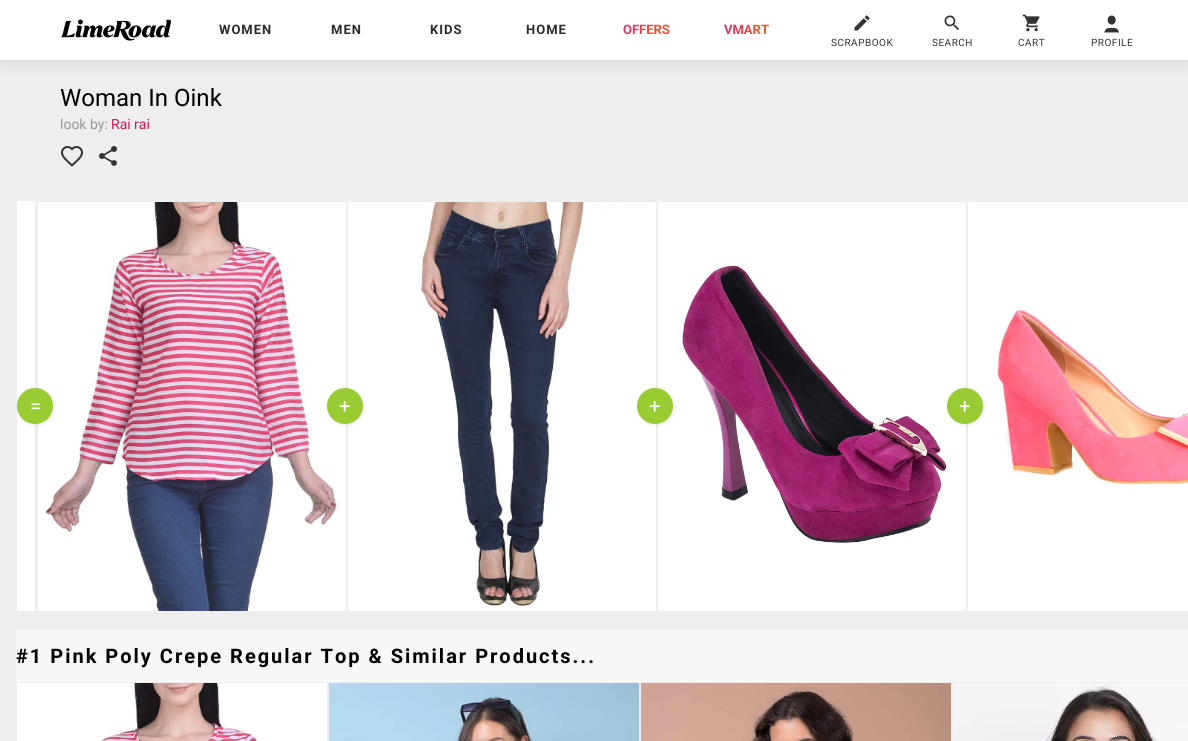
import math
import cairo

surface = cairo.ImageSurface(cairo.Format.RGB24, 1188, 741)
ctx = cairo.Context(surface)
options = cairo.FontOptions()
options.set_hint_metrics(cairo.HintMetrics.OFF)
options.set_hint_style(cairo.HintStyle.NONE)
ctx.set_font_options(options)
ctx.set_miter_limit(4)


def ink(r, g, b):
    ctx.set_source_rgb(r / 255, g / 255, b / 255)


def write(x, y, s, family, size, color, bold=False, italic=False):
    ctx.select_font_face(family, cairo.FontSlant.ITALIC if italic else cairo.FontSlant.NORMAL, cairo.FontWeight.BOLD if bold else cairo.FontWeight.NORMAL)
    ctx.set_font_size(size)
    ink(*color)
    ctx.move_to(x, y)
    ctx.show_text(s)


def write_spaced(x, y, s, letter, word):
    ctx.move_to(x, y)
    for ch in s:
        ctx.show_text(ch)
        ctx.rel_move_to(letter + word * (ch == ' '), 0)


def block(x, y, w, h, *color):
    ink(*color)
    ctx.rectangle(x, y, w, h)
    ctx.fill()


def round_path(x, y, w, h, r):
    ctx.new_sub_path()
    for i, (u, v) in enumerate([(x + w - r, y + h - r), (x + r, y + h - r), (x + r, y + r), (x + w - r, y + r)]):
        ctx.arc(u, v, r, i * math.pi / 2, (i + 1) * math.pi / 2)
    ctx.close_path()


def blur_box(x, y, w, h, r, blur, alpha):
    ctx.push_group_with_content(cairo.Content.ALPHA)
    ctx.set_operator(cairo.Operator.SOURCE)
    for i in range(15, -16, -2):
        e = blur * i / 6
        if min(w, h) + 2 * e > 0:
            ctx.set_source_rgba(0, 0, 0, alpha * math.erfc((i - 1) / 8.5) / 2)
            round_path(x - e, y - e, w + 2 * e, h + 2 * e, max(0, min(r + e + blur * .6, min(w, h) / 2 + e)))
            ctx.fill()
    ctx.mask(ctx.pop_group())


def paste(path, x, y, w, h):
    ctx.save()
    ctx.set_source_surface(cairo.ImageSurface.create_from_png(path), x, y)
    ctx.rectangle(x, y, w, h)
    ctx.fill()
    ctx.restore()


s1 = dict(family="Roboto", size=24, color=(0, 0, 0))
s2 = dict(family="Roboto", size=14, color=(153, 153, 153))
s3 = dict(family="Roboto", size=14, color=(211, 20, 90))
s4 = dict(family="Roboto", size=20, color=(255, 255, 255))

ink(238, 238, 238)
ctx.paint()
ink(85, 85, 85)
blur_box(0, 2, 1188, 60, 0, 8, 0.16)
block(0, 0, 1188, 60, 255, 255, 255)
paste("pic1.png", 61, 19, 110, 22)
ctx.select_font_face("Roboto", cairo.FontSlant.NORMAL, cairo.FontWeight.BOLD)
ctx.set_font_size(13)
ink(42, 42, 42)
write_spaced(219, 34, "WOMEN", 1, 0)
write_spaced(331, 34, "MEN", 1, 0)
write_spaced(430, 34, "KIDS", 1, 0)
write_spaced(526, 34, "HOME", 1, 0)
gradient = cairo.LinearGradient(624, 15, 666, 42)
gradient.add_color_stop_rgba(0, 0.808, 0.161, 0.494, 1)
gradient.add_color_stop_rgba(0.73, 0.929, 0.318, 0.2, 1)
ctx.set_source(gradient)
ctx.move_to(623, 34)
ctx.show_text("OFFERS")
gradient = cairo.LinearGradient(725, 16, 765, 42)
gradient.add_color_stop_rgba(0, 0.808, 0.161, 0.494, 1)
gradient.add_color_stop_rgba(0.73, 0.929, 0.318, 0.2, 1)
ctx.set_source(gradient)
ctx.move_to(724, 34)
ctx.show_text("VMART")
paste("pic2.png", 854, 15, 16, 16)
ctx.select_font_face("Roboto")
ctx.set_font_size(10)
ink(51, 51, 51)
write_spaced(831, 46, "SCRAPBOOK", 0.5, 0)
paste("pic3.png", 944, 15, 15, 15)
write_spaced(932, 46, "SEARCH", 0.5, 0)
paste("pic4.png", 1022, 14, 18, 18)
write_spaced(1018, 46, "CART", 0.5, 0)
paste("pic5.png", 1104, 15, 15, 18)
write_spaced(1091, 46, "PROFILE", 0.5, 0)
write(60, 106, "Woman In Oink", **s1)
write(60, 129, "look by:", **s2)
write(111, 129, "Rai rai", **s3)
paste("pic6.png", 61, 146, 22, 21)
paste("pic7.png", 99, 146, 18, 20)
block(17, 201, 18, 410, 255, 255, 255)
round_path(36.5, 200.5, 309, 411, 3.5)
ctx.fill_preserve()
ink(238, 238, 238)
ctx.set_line_width(1)
ctx.stroke()
round_path(37.5, 201.5, 309, 410, 3.5)
ctx.stroke()
paste("pic8.png", 38, 202, 308, 409)
ink(0, 0, 0)
blur_box(17, 388, 38, 38, 19, 1, 0.05)
ink(153, 204, 51)
ctx.arc(35, 406, 18, 0, 2 * math.pi)
ctx.fill()
write(30, 413, "=", **s4)
round_path(346.5, 200.5, 309, 411, 3.5)
ctx.fill_preserve()
ink(238, 238, 238)
ctx.stroke()
round_path(347.5, 201.5, 309, 410, 3.5)
ctx.stroke()
paste("pic9.png", 348, 202, 308, 409)
ink(0, 0, 0)
blur_box(327, 388, 38, 38, 19, 1, 0.05)
ink(153, 204, 51)
ctx.arc(345, 406, 18, 0, 2 * math.pi)
ctx.fill()
write(339, 413, "+", **s4)
round_path(656.5, 200.5, 309, 411, 3.5)
ctx.fill_preserve()
ink(238, 238, 238)
ctx.stroke()
round_path(657.5, 201.5, 309, 410, 3.5)
ctx.stroke()
paste("pic10.png", 658, 202, 308, 409)
ink(0, 0, 0)
blur_box(637, 388, 38, 38, 19, 1, 0.05)
ink(153, 204, 51)
ctx.arc(655, 406, 18, 0, 2 * math.pi)
ctx.fill()
write(649, 413, "+", **s4)
ctx.new_path()
ctx.move_to(970, 200)
ctx.line_to(1188, 200)
ctx.line_to(1188, 612)
ctx.line_to(970, 612)
ctx.curve_to(968, 612, 966, 610, 966, 608)
ctx.line_to(966, 204)
ctx.curve_to(966, 202, 968, 200, 970, 200)
ctx.close_path()
ctx.fill()
round_path(966.5, 200.5, 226, 411, 3.5)
ink(238, 238, 238)
ctx.stroke()
round_path(967.5, 201.5, 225, 410, 3.5)
ctx.stroke()
paste("pic11.png", 968, 308, 220, 303)
ink(0, 0, 0)
blur_box(947, 388, 38, 38, 19, 1, 0.05)
ink(153, 204, 51)
ctx.arc(965, 406, 18, 0, 2 * math.pi)
ctx.fill()
write(959, 413, "+", **s4)
block(16, 630, 1172, 52, 248, 248, 248)
ctx.select_font_face("Roboto", cairo.FontSlant.NORMAL, cairo.FontWeight.BOLD)
ink(0, 0, 0)
write_spaced(16, 663, "#1 Pink Poly Crepe Regular Top & Similar Products...", 2, 0)
paste("pic12.png", 17, 683, 310, 58)
paste("pic13.png", 329, 683, 310, 58)
paste("pic14.png", 641, 683, 310, 58)
paste("pic15.png", 953, 683, 235, 58)
surface.write_to_png("screenshot.png")
